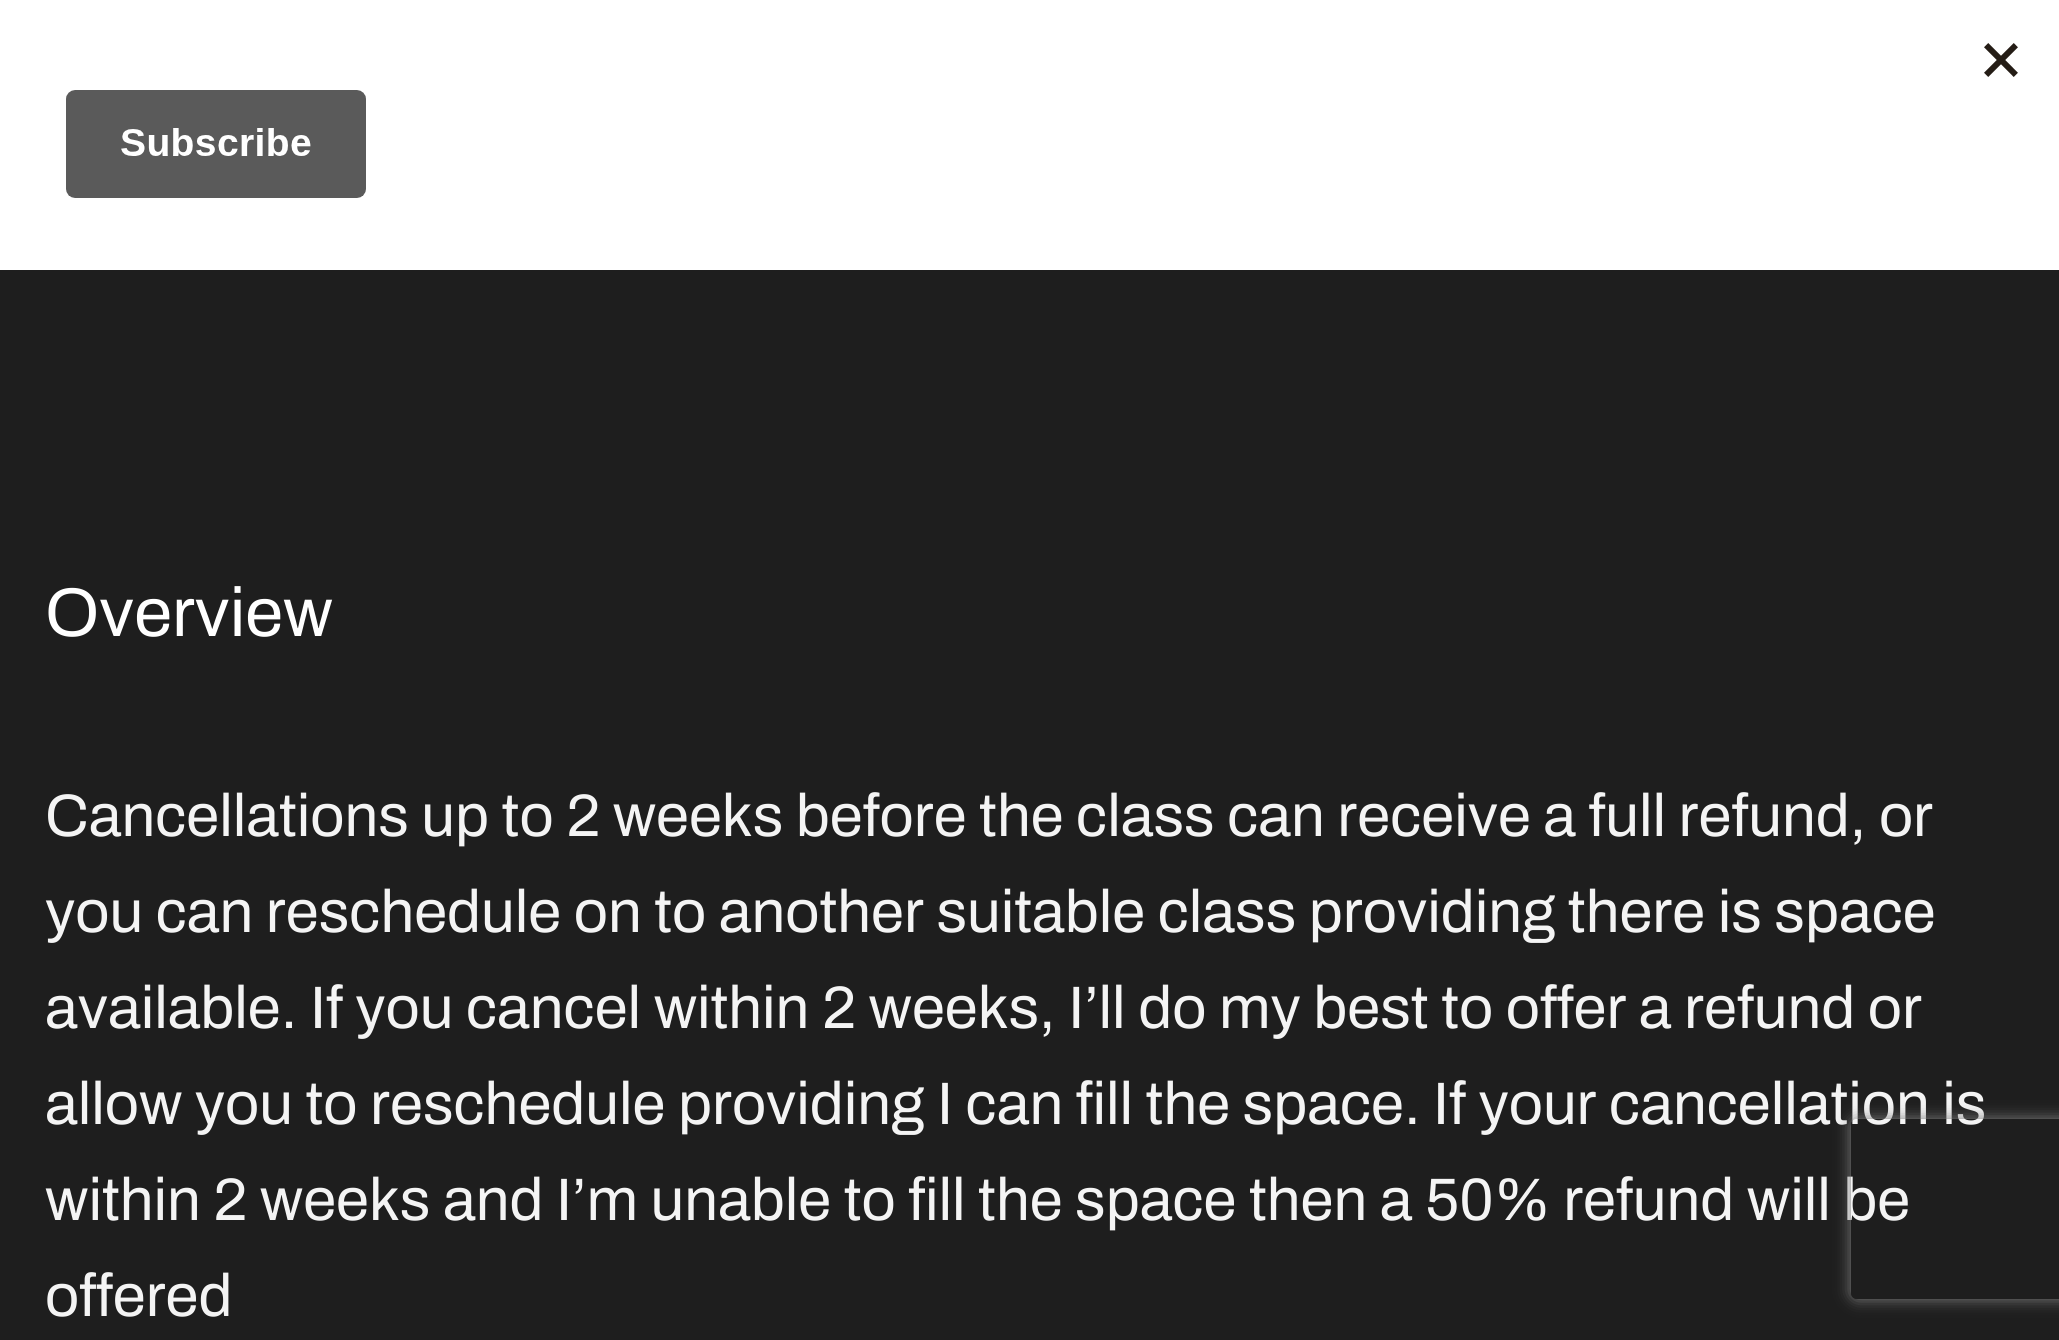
import math
import cairo

surface = cairo.ImageSurface(cairo.Format.RGB24, 2059, 1340)
ctx = cairo.Context(surface)
options = cairo.FontOptions()
options.set_hint_metrics(cairo.HintMetrics.OFF)
options.set_hint_style(cairo.HintStyle.NONE)
ctx.set_font_options(options)
ctx.set_miter_limit(4)


def ink(r, g, b):
    ctx.set_source_rgb(r / 255, g / 255, b / 255)


def write(x, y, s, family, size, color, bold=False, italic=False):
    ctx.select_font_face(family, cairo.FontSlant.ITALIC if italic else cairo.FontSlant.NORMAL, cairo.FontWeight.BOLD if bold else cairo.FontWeight.NORMAL)
    ctx.set_font_size(size)
    ink(*color)
    ctx.move_to(x, y)
    ctx.show_text(s)


def block(x, y, w, h, *color):
    ink(*color)
    ctx.rectangle(x, y, w, h)
    ctx.fill()


def round_path(x, y, w, h, r):
    ctx.new_sub_path()
    for i, (u, v) in enumerate([(x + w - r, y + h - r), (x + r, y + h - r), (x + r, y + r), (x + w - r, y + r)]):
        ctx.arc(u, v, r, i * math.pi / 2, (i + 1) * math.pi / 2)
    ctx.close_path()


def blur_box(x, y, w, h, r, blur, alpha):
    ctx.push_group_with_content(cairo.Content.ALPHA)
    ctx.set_operator(cairo.Operator.SOURCE)
    for i in range(15, -16, -2):
        e = blur * i / 6
        if min(w, h) + 2 * e > 0:
            ctx.set_source_rgba(0, 0, 0, alpha * math.erfc((i - 1) / 8.5) / 2)
            round_path(x - e, y - e, w + 2 * e, h + 2 * e, max(0, min(r + e + blur * .6, min(w, h) / 2 + e)))
            ctx.fill()
    ctx.mask(ctx.pop_group())


def paste(path, x, y, w, h):
    ctx.save()
    ctx.set_source_surface(cairo.ImageSurface.create_from_png(path), x, y)
    ctx.rectangle(x, y, w, h)
    ctx.fill()
    ctx.restore()


s1 = dict(family="Archivo", size=69, color=(255, 255, 255))
s2 = dict(family="Archivo", size=60, color=(244, 244, 244))

ink(30, 30, 30)
ctx.paint()
block(0, 0, 2059, 270, 255, 255, 255)
paste("pic1.png", 66, 43, 1952, 155)
write(45, 636, "Overview", **s1)
write(45, 836, "Cancellations up to 2 weeks before the class can receive a full refund, or", **s2)
write(45, 932, "you can reschedule on to another suitable class providing there is space", **s2)
write(45, 1028, "available. If you cancel within 2 weeks, I’ll do my best to offer a refund or", **s2)
write(45, 1124, "allow you to reschedule providing I can fill the space. If your cancellation is", **s2)
write(45, 1220, "within 2 weeks and I’m unable to fill the space then a 50% refund will be", **s2)
write(45, 1316, "offered", **s2)
ctx.save()
ctx.set_fill_rule(cairo.FillRule.EVEN_ODD)
ctx.new_path()
ctx.move_to(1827, 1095)
ctx.line_to(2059, 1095)
ctx.line_to(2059, 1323)
ctx.line_to(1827, 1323)
ctx.close_path()
ctx.move_to(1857, 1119)
ctx.line_to(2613, 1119)
ctx.curve_to(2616.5, 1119, 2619, 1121.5, 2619, 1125)
ctx.line_to(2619, 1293)
ctx.curve_to(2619, 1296.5, 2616.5, 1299, 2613, 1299)
ctx.line_to(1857, 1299)
ctx.curve_to(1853.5, 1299, 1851, 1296.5, 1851, 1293)
ctx.line_to(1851, 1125)
ctx.curve_to(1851, 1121.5, 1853.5, 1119, 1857, 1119)
ctx.close_path()
ctx.clip()
ink(128, 128, 128)
blur_box(1851, 1119, 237, 180, 6, 7.5, 1)
ctx.restore()
surface.write_to_png("screenshot.png")
